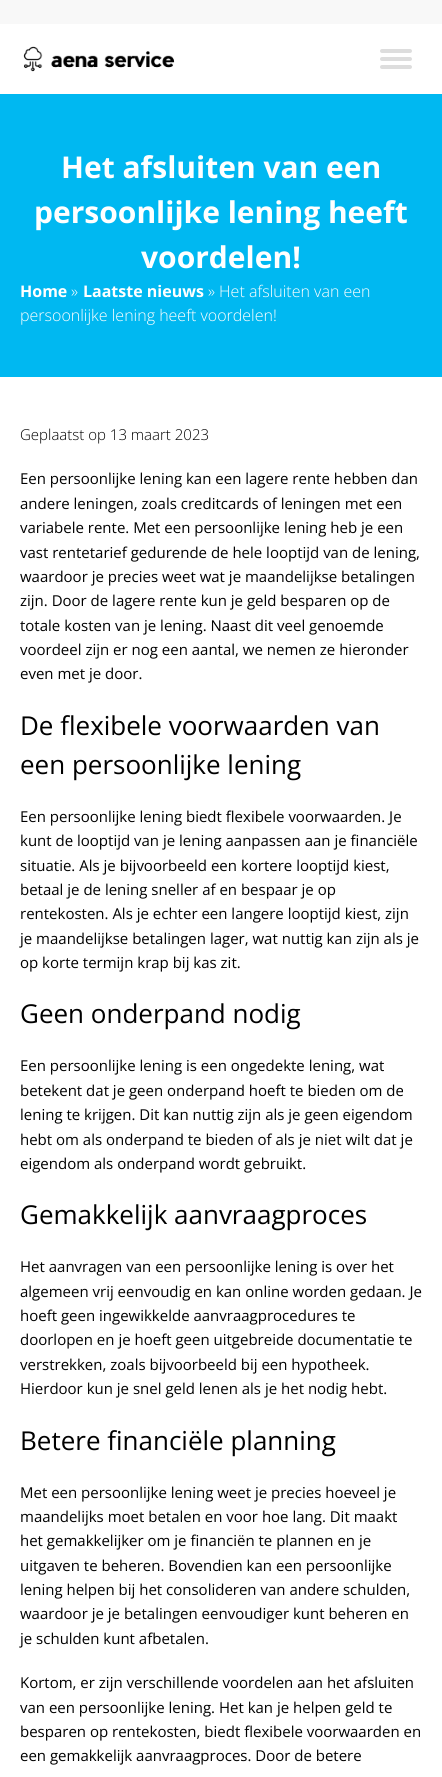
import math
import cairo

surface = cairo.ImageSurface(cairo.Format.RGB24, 442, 1777)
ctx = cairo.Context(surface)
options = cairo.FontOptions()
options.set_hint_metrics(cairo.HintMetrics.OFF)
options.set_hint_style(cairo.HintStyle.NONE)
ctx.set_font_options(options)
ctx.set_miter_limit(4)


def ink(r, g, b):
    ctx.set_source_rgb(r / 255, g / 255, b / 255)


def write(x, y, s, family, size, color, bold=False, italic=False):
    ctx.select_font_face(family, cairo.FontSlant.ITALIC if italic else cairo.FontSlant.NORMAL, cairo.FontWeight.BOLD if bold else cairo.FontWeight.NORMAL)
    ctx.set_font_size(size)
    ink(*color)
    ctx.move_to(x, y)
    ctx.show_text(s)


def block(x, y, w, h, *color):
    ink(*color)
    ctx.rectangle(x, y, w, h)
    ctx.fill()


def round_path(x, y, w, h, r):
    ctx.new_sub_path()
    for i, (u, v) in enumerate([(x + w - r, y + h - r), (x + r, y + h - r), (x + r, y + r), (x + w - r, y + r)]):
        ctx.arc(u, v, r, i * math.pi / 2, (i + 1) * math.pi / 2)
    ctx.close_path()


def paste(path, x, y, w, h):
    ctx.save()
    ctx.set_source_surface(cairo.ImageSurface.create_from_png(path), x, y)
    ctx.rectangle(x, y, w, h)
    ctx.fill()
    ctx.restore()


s1 = dict(family="Open Sans", size=30, color=(255, 255, 255), bold=True)
s2 = dict(family="Open Sans", size=16, color=(255, 255, 255), bold=True)
s3 = dict(family="Open Sans Light", size=16, color=(255, 255, 255))
s4 = dict(family="Open Sans Light", size=15, color=(0, 0, 0))
s5 = dict(family="Open Sans", size=15, color=(0, 0, 0))
s6 = dict(family="Open Sans", size=26, color=(0, 0, 0))

ink(255, 255, 255)
ctx.paint()
block(0, 0, 442, 24, 248, 248, 248)
paste("pic1.png", 23, 46, 152, 26)
ink(221, 221, 221)
round_path(380, 49, 32, 4, 2)
ctx.fill()
round_path(380, 57, 32, 4, 2)
ctx.fill()
round_path(380, 65, 32, 4, 2)
ctx.fill()
block(0, 94, 442, 283, 0, 184, 241)
write(61, 178, "Het afsluiten van een", **s1)
write(34, 223, "persoonlijke lening heeft", **s1)
write(141, 268, "voordelen!", **s1)
write(20, 297, "Home", **s2)
write(71, 297, "»", **s3)
write(83, 297, "Laatste nieuws", **s2)
write(208, 297, "» Het afsluiten van een", **s3)
write(20, 321, "persoonlijke lening heeft voordelen!", **s3)
write(20, 440, "Geplaatst op 13 maart 2023", **s4)
write(20, 484, "Een persoonlijke lening kan een lagere rente hebben dan", **s5)
write(20, 509, "andere leningen, zoals creditcards of leningen met een", **s5)
write(20, 533, "variabele rente. Met een persoonlijke lening heb je een", **s5)
write(20, 558, "vast rentetarief gedurende de hele looptijd van de lening,", **s5)
write(20, 582, "waardoor je precies weet wat je maandelijkse betalingen", **s5)
write(20, 606, "zijn. Door de lagere rente kun je geld besparen op de", **s5)
write(20, 631, "totale kosten van je lening. Naast dit veel genoemde", **s5)
write(20, 655, "voordeel zijn er nog een aantal, we nemen ze hieronder", **s5)
write(20, 679, "even met je door.", **s5)
write(20, 735, "De flexibele voorwaarden van", **s6)
write(20, 774, "een persoonlijke lening", **s6)
write(20, 822, "Een persoonlijke lening biedt flexibele voorwaarden. Je", **s5)
write(20, 846, "kunt de looptijd van je lening aanpassen aan je financiële", **s5)
write(20, 871, "situatie. Als je bijvoorbeeld een kortere looptijd kiest,", **s5)
write(20, 895, "betaal je de lening sneller af en bespaar je op", **s5)
write(20, 919, "rentekosten. Als je echter een langere looptijd kiest, zijn", **s5)
write(20, 944, "je maandelijkse betalingen lager, wat nuttig kan zijn als je", **s5)
write(20, 968, "op korte termijn krap bij kas zit.", **s5)
write(20, 1023, "Geen onderpand nodig", **s6)
write(20, 1071, "Een persoonlijke lening is een ongedekte lening, wat", **s5)
write(20, 1096, "betekent dat je geen onderpand hoeft te bieden om de", **s5)
write(20, 1120, "lening te krijgen. Dit kan nuttig zijn als je geen eigendom", **s5)
write(20, 1145, "hebt om als onderpand te bieden of als je niet wilt dat je", **s5)
write(20, 1169, "eigendom als onderpand wordt gebruikt.", **s5)
write(20, 1224, "Gemakkelijk aanvraagproces", **s6)
write(20, 1272, "Het aanvragen van een persoonlijke lening is over het", **s5)
write(20, 1297, "algemeen vrij eenvoudig en kan online worden gedaan. Je", **s5)
write(20, 1321, "hoeft geen ingewikkelde aanvraagprocedures te", **s5)
write(20, 1345, "doorlopen en je hoeft geen uitgebreide documentatie te", **s5)
write(20, 1370, "verstrekken, zoals bijvoorbeeld bij een hypotheek.", **s5)
write(20, 1394, "Hierdoor kun je snel geld lenen als je het nodig hebt.", **s5)
write(20, 1450, "Betere financiële planning", **s6)
write(20, 1498, "Met een persoonlijke lening weet je precies hoeveel je", **s5)
write(20, 1522, "maandelijks moet betalen en voor hoe lang. Dit maakt", **s5)
write(20, 1546, "het gemakkelijker om je financiën te plannen en je", **s5)
write(20, 1571, "uitgaven te beheren. Bovendien kan een persoonlijke", **s5)
write(20, 1595, "lening helpen bij het consolideren van andere schulden,", **s5)
write(20, 1619, "waardoor je je betalingen eenvoudiger kunt beheren en", **s5)
write(20, 1644, "je schulden kunt afbetalen.", **s5)
write(20, 1688, "Kortom, er zijn verschillende voordelen aan het afsluiten", **s5)
write(20, 1713, "van een persoonlijke lening. Het kan je helpen geld te", **s5)
write(20, 1737, "besparen op rentekosten, biedt flexibele voorwaarden en", **s5)
write(20, 1761, "een gemakkelijk aanvraagproces. Door de betere", **s5)
surface.write_to_png("screenshot.png")
